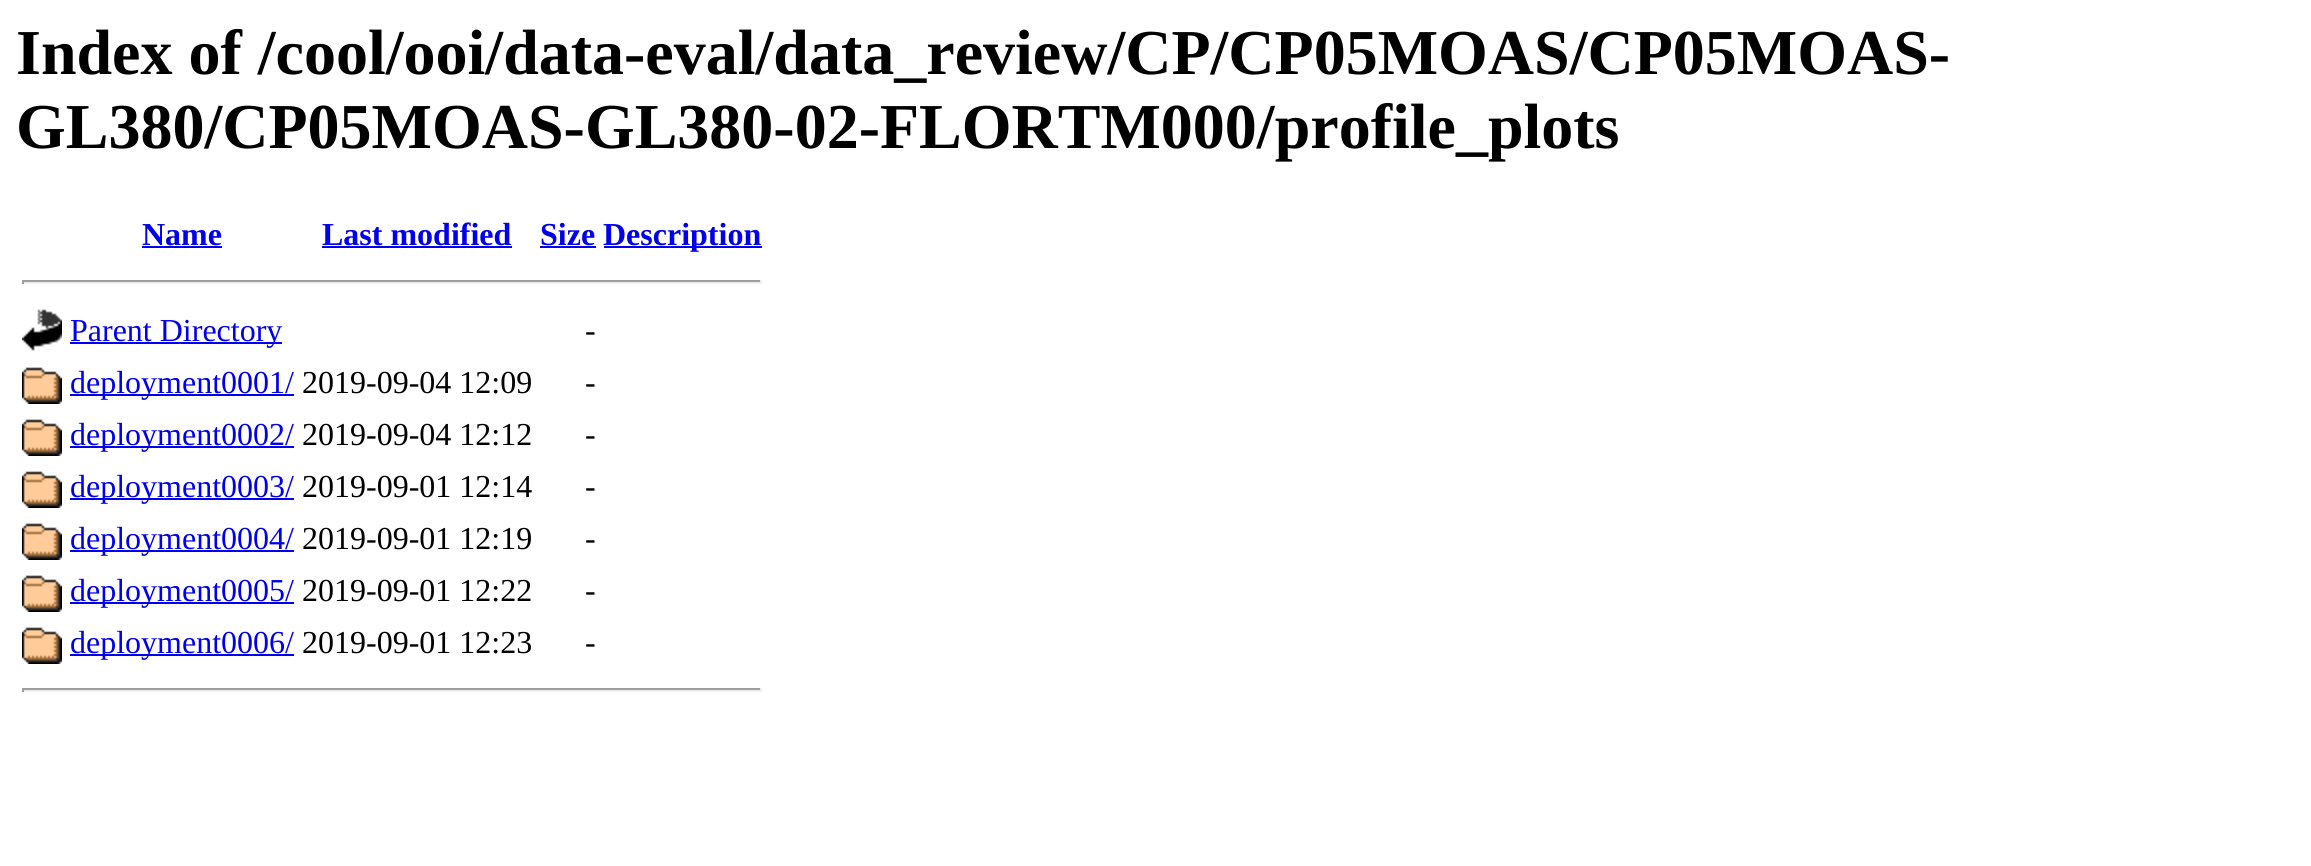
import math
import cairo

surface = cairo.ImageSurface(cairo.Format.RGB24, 2311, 866)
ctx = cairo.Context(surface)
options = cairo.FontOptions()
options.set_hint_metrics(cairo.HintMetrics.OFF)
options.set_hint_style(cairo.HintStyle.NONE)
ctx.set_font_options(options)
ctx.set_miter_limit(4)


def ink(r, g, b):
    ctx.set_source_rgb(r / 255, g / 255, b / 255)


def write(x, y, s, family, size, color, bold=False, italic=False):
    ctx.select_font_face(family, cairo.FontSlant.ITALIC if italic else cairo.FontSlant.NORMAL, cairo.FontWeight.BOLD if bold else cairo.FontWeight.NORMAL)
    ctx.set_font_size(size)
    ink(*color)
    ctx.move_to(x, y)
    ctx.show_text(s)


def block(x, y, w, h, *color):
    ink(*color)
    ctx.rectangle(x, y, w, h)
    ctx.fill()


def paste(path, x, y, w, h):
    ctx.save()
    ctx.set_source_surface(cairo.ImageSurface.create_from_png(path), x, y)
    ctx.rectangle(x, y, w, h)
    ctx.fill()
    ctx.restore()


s1 = dict(family="Liberation Serif", size=64, color=(0, 0, 0), bold=True)
s2 = dict(family="Liberation Serif", size=32, color=(0, 0, 238), bold=True)
s3 = dict(family="Liberation Serif", size=32, color=(0, 0, 238))
s4 = dict(family="Liberation Serif", size=32, color=(0, 0, 0))

ink(255, 255, 255)
ctx.paint()
write(16, 74, "Index of /cool/ooi/data-eval/data_review/CP/CP05MOAS/CP05MOAS-", **s1)
write(16, 148, "GL380/CP05MOAS-GL380-02-FLORTM000/profile_plots", **s1)
write(142, 245, "Name", **s2)
block(142, 246, 80, 2, 0, 0, 238)
write(322, 245, "Last modified", **s2)
block(322, 246, 190, 2, 0, 0, 238)
write(540, 245, "Size", **s2)
block(540, 246, 56, 2, 0, 0, 238)
block(604, 246, 158, 2, 0, 0, 238)
write(603, 245, "Description", **s2)
block(22, 280, 740, 2, 159, 159, 159)
block(760, 280, 2, 4, 238, 238, 238)
block(22, 282, 740, 2, 238, 238, 238)
block(22, 280, 2, 4, 159, 159, 159)
paste("pic1.png", 22, 309, 40, 42)
block(70, 342, 212, 2, 0, 0, 238)
write(70, 341, "Parent Directory", **s3)
write(585, 341, "-", **s4)
paste("pic2.png", 22, 367, 40, 37)
block(70, 394, 224, 2, 0, 0, 238)
write(70, 393, "deployment0001/", **s3)
write(302, 393, "2019-09-04 12:09", **s4)
write(585, 393, "-", **s4)
paste("pic2.png", 22, 419, 40, 37)
block(70, 446, 224, 2, 0, 0, 238)
write(70, 445, "deployment0002/", **s3)
write(302, 445, "2019-09-04 12:12", **s4)
write(585, 445, "-", **s4)
paste("pic2.png", 22, 471, 40, 37)
block(70, 498, 224, 2, 0, 0, 238)
write(70, 497, "deployment0003/", **s3)
write(302, 497, "2019-09-01 12:14", **s4)
write(585, 497, "-", **s4)
paste("pic2.png", 22, 523, 40, 37)
block(70, 550, 224, 2, 0, 0, 238)
write(70, 549, "deployment0004/", **s3)
write(302, 549, "2019-09-01 12:19", **s4)
write(585, 549, "-", **s4)
paste("pic2.png", 22, 575, 40, 37)
block(70, 602, 224, 2, 0, 0, 238)
write(70, 601, "deployment0005/", **s3)
write(302, 601, "2019-09-01 12:22", **s4)
write(585, 601, "-", **s4)
paste("pic2.png", 22, 627, 40, 37)
block(70, 654, 224, 2, 0, 0, 238)
write(70, 653, "deployment0006/", **s3)
write(302, 653, "2019-09-01 12:23", **s4)
write(585, 653, "-", **s4)
block(22, 688, 740, 2, 159, 159, 159)
block(760, 688, 2, 4, 238, 238, 238)
block(22, 690, 740, 2, 238, 238, 238)
block(22, 688, 2, 4, 159, 159, 159)
surface.write_to_png("screenshot.png")
